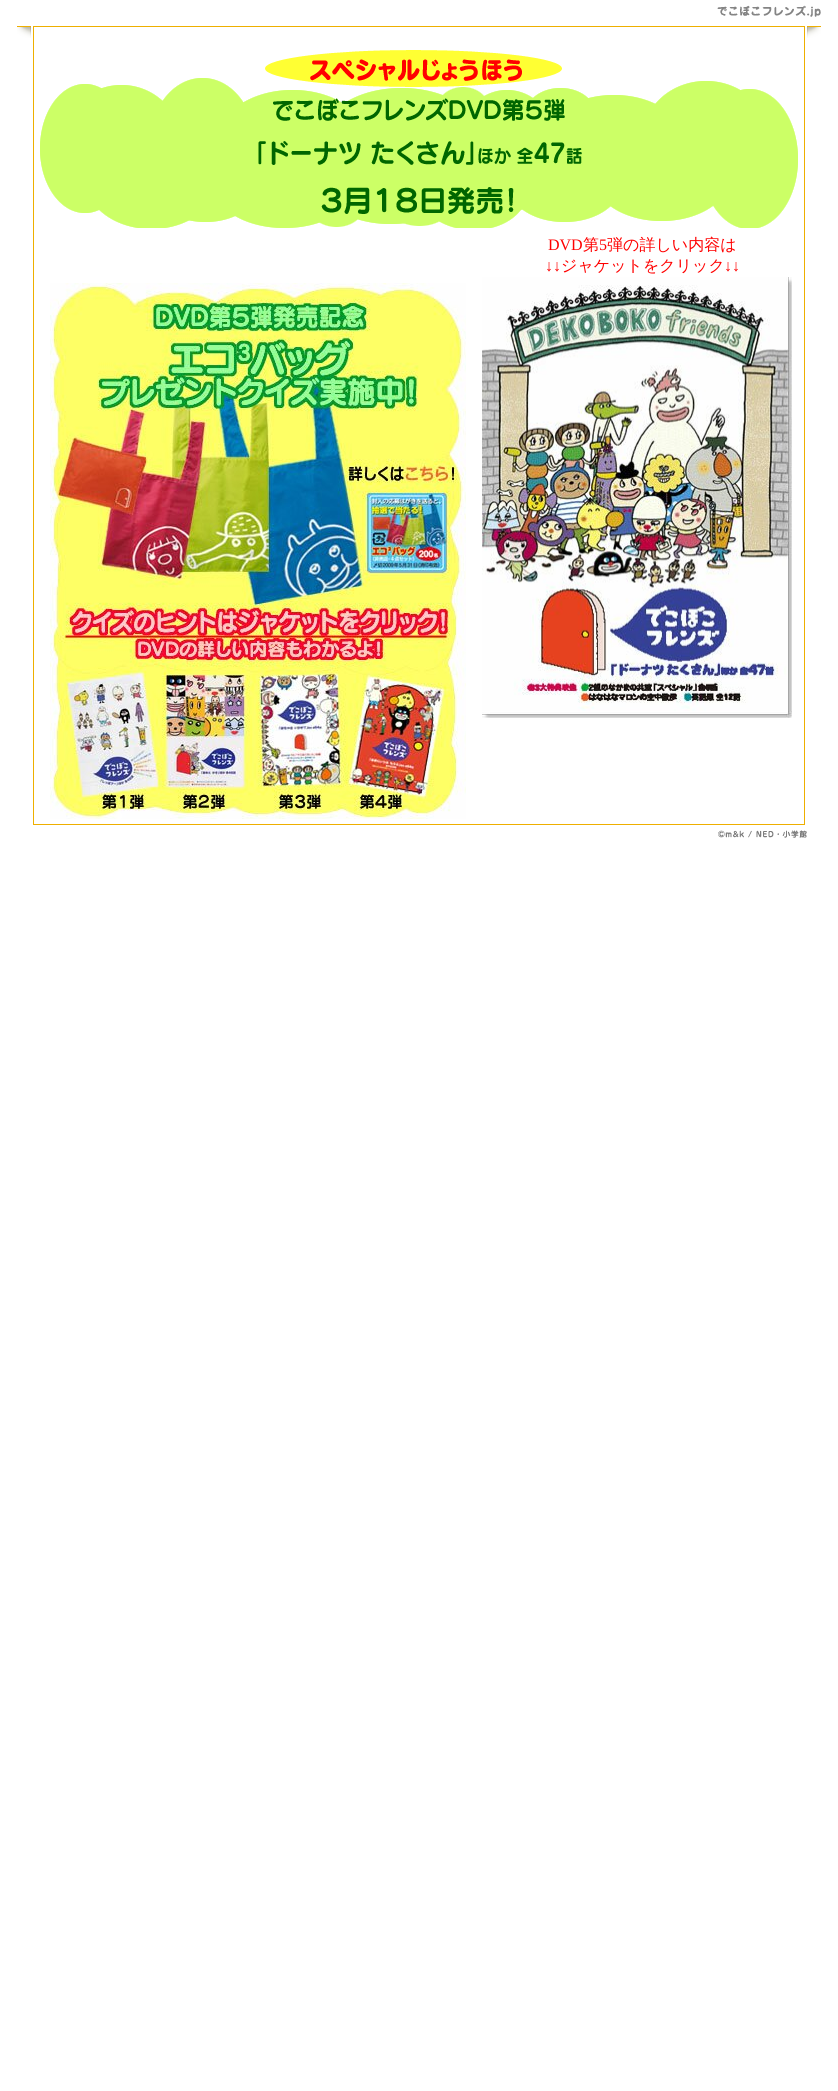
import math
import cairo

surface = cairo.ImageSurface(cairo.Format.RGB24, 838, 2091)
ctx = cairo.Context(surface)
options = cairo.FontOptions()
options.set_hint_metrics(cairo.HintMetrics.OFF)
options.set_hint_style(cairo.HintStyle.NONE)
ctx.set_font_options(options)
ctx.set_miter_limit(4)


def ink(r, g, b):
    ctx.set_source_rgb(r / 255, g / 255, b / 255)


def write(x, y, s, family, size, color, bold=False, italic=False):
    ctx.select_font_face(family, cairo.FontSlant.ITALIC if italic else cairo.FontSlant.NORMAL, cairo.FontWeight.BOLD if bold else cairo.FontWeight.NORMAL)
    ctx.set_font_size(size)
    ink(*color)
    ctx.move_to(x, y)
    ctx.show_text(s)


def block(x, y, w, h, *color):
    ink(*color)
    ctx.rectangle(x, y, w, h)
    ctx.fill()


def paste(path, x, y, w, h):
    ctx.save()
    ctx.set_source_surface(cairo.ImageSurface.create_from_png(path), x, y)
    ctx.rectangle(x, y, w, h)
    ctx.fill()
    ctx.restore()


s1 = dict(family="Liberation Serif", size=16, color=(255, 0, 0))
s2 = dict(family="WenQuanYi Zen Hei Medium", size=16, color=(255, 0, 0))

ink(255, 255, 255)
ctx.paint()
paste("pic1.png", 717, 5, 104, 12)
paste("pic2.png", 17, 26, 14, 12)
paste("pic3.png", 807, 26, 14, 12)
block(33, 26, 772, 799, 238, 175, 0)
block(34, 27, 770, 797, 255, 255, 255)
paste("pic4.png", 40, 50, 758, 178)
write(548, 250, "DVD", **s1)
write(583, 250, "第", **s2)
write(599, 250, "5", **s1)
write(607, 250, "弾の詳しい内容は", **s2)
write(545, 271, "↓↓", **s1)
write(561, 271, "ジャケットをクリック", **s2)
write(724, 271, "↓↓", **s1)
paste("pic5.png", 482, 277, 310, 441)
paste("pic6.png", 50, 283, 416, 536)
paste("pic7.png", 718, 830, 89, 8)
surface.write_to_png("screenshot.png")
